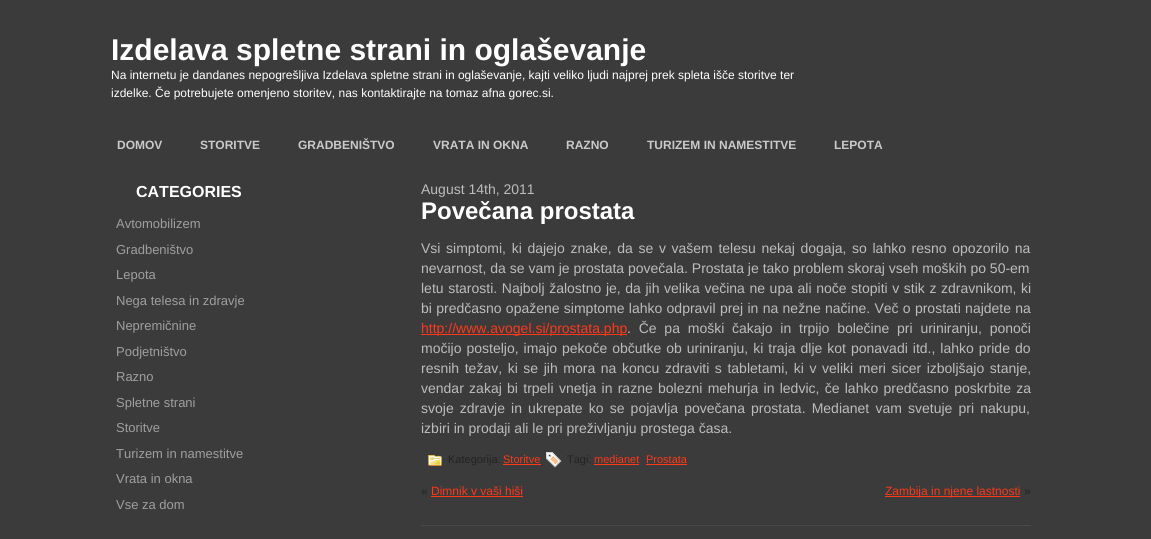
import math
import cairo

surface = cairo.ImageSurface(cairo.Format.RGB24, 1151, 539)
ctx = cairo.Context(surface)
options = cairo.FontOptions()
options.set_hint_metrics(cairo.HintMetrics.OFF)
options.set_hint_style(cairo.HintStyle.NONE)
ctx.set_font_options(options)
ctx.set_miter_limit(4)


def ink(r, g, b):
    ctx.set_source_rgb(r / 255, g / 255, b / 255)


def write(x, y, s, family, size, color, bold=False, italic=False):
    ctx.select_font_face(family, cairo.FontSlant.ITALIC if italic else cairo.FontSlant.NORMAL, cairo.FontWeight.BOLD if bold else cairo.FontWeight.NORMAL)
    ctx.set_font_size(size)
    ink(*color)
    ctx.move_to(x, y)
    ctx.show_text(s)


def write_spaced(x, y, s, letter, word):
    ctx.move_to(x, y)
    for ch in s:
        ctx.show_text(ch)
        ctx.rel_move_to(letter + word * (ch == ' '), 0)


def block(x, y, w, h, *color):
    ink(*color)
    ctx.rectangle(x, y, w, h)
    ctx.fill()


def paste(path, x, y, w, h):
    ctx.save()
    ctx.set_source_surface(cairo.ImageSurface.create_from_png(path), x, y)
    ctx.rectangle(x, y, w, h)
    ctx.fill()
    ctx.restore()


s1 = dict(family="Liberation Sans", size=30, color=(255, 255, 255), bold=True)
s2 = dict(family="Liberation Sans", size=12, color=(255, 255, 255))
s3 = dict(family="Liberation Sans", size=12, color=(202, 202, 202), bold=True)
s4 = dict(family="Liberation Sans", size=16, color=(255, 255, 255), bold=True)
s5 = dict(family="Liberation Sans", size=13, color=(159, 159, 159))
s6 = dict(family="Liberation Sans", size=14, color=(188, 188, 188))
s7 = dict(family="Liberation Sans", size=24, color=(255, 255, 255), bold=True)
s8 = dict(family="Liberation Sans", size=14, color=(255, 56, 24))
s9 = dict(family="Liberation Sans", size=11, color=(34, 34, 34))
s10 = dict(family="Liberation Sans", size=11, color=(255, 56, 24))
s11 = dict(family="Liberation Sans", size=12, color=(34, 34, 34))
s12 = dict(family="Liberation Sans", size=12, color=(255, 56, 24))

ink(59, 59, 59)
ctx.paint()
write(111, 60, "Izdelava spletne strani in oglaševanje", **s1)
write(111, 79, "Na internetu je dandanes nepogrešljiva Izdelava spletne strani in oglaševanje, kajti veliko ljudi najprej prek spleta išče storitve ter", **s2)
write(111, 97, "izdelke. Če potrebujete omenjeno storitev, nas kontaktirajte na tomaz afna gorec.si.", **s2)
write(117, 149, "DOMOV", **s3)
write(200, 149, "STORITVE", **s3)
write(298, 149, "GRADBENIŠTVO", **s3)
write(433, 149, "VRATA IN OKNA", **s3)
write(566, 149, "RAZNO", **s3)
write(647, 149, "TURIZEM IN NAMESTITVE", **s3)
write(834, 149, "LEPOTA", **s3)
write(136, 197, "CATEGORIES", **s4)
write(116, 228, "Avtomobilizem", **s5)
write(116, 254, "Gradbeništvo", **s5)
write(116, 279, "Lepota", **s5)
write(116, 305, "Nega telesa in zdravje", **s5)
write(116, 330, "Nepremičnine", **s5)
write(116, 356, "Podjetništvo", **s5)
write(116, 381, "Razno", **s5)
write(116, 407, "Spletne strani", **s5)
write(116, 432, "Storitve", **s5)
write(116, 458, "Turizem in namestitve", **s5)
write(116, 483, "Vrata in okna", **s5)
write(116, 509, "Vse za dom", **s5)
block(421, 525, 610, 1, 75, 74, 74)
write(421, 194, "August 14th, 2011", **s6)
write(421, 219, "Povečana prostata", **s7)
ctx.select_font_face("Liberation Sans")
ctx.set_font_size(14)
ink(188, 188, 188)
write_spaced(421, 253, "Vsi simptomi, ki dajejo znake, da se v vašem telesu nekaj dogaja, so lahko resno opozorilo na", 0, 1.75)
write(421, 273, "nevarnost, da se vam je prostata povečala. Prostata je tako problem skoraj vseh moških po 50-em", **s6)
write_spaced(421, 293, "letu starosti. Najbolj žalostno je, da jih velika večina ne upa ali noče stopiti v stik z zdravnikom, ki", 0, 0.7)
write_spaced(421, 313, "bi predčasno opažene simptome lahko odpravil prej in na nežne načine. Več o prostati najdete na", 0, 0.4)
block(421, 334, 206, 1, 255, 56, 24)
write(421, 333, "http://www.avogel.si/prostata.php", **s8)
ink(188, 188, 188)
write_spaced(627, 333, ". Če pa moški čakajo in trpijo bolečine pri uriniranju, ponoči", 0, 3.9)
write_spaced(421, 353, "močijo posteljo, imajo pekoče občutke ob uriniranju, ki traja dlje kot ponavadi itd., lahko pride do", 0, 1.1)
write_spaced(421, 373, "resnih težav, ki se jih mora na koncu zdraviti s tabletami, ki v veliki meri sicer izboljšajo stanje,", 0, 1.7)
write_spaced(421, 393, "vendar zakaj bi trpeli vnetja in razne bolezni mehurja in ledvic, če lahko predčasno poskrbite za", 0, 1.4)
write_spaced(421, 413, "svoje zdravje in ukrepate ko se pojavlja povečana prostata. Medianet vam svetuje pri nakupu,", 0, 2.25)
write(421, 433, "izbiri in prodaji ali le pri preživljanju prostega časa.", **s6)
paste("pic1.png", 428, 455, 14, 11)
write(448, 463, "Kategorija:", **s9)
write(503, 463, "Storitve", **s10)
block(503, 464, 38, 1, 255, 56, 24)
paste("pic2.png", 546, 452, 16, 16)
write(567, 463, "Tagi:", **s9)
write(594, 463, "medianet", **s10)
block(594, 464, 45, 1, 255, 56, 24)
write(646, 463, "Prostata", **s10)
block(646, 464, 41, 1, 255, 56, 24)
write(421, 495, "«", **s11)
write(431, 495, "Dimnik v vaši hiši", **s12)
block(431, 496, 92, 1, 255, 56, 24)
block(885, 496, 135, 1, 255, 56, 24)
write(885, 495, "Zambija in njene lastnosti", **s12)
write(1024, 495, "»", **s11)
surface.write_to_png("screenshot.png")
